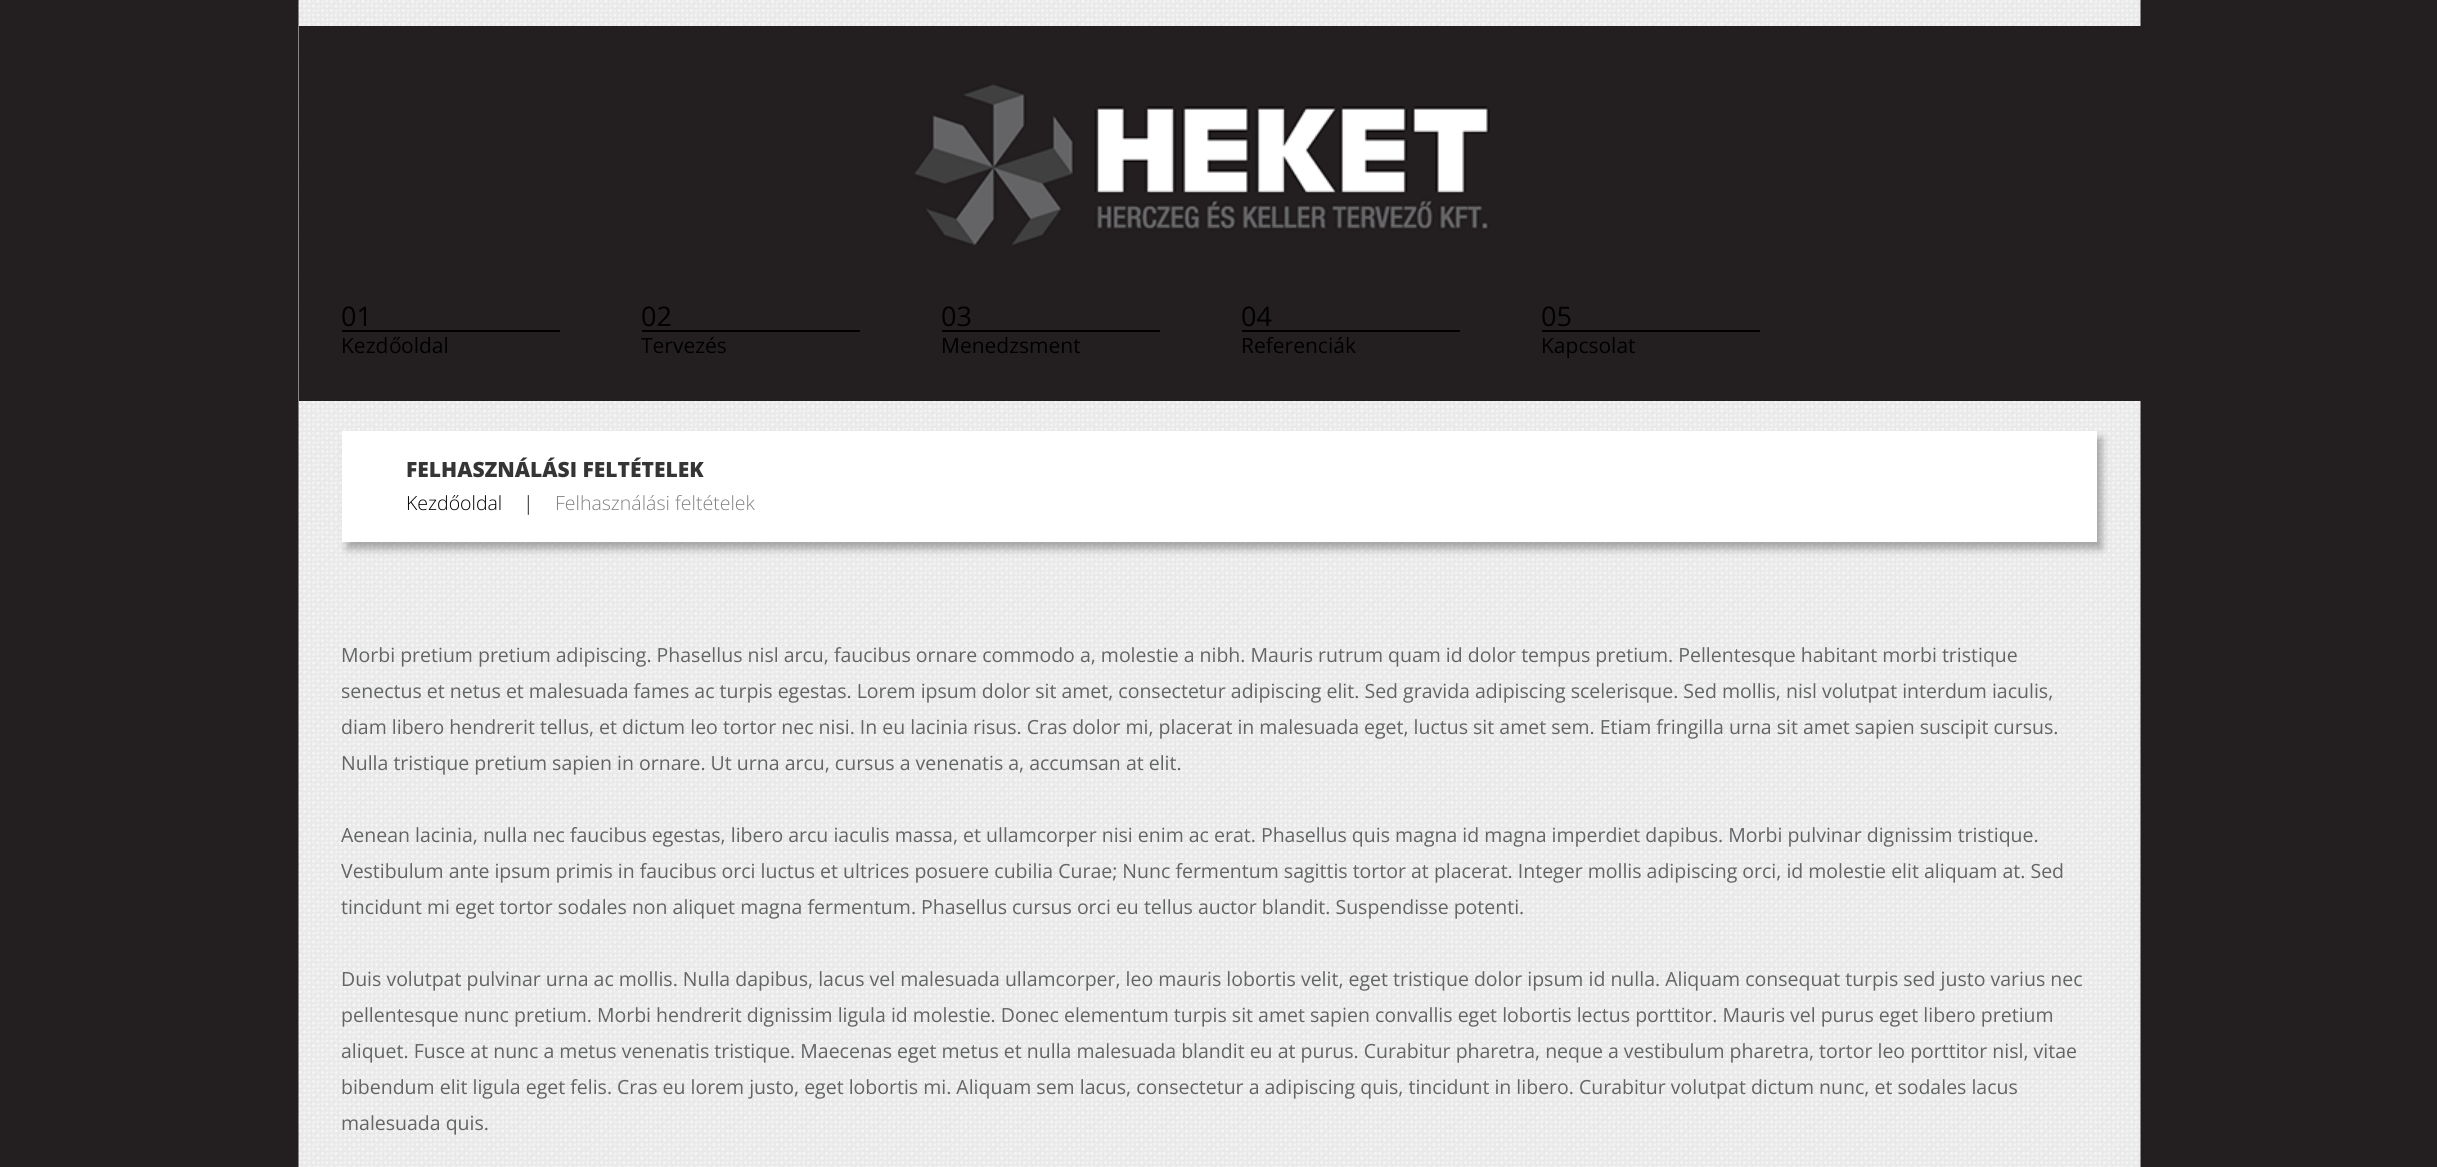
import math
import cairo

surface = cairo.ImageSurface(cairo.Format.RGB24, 2437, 1167)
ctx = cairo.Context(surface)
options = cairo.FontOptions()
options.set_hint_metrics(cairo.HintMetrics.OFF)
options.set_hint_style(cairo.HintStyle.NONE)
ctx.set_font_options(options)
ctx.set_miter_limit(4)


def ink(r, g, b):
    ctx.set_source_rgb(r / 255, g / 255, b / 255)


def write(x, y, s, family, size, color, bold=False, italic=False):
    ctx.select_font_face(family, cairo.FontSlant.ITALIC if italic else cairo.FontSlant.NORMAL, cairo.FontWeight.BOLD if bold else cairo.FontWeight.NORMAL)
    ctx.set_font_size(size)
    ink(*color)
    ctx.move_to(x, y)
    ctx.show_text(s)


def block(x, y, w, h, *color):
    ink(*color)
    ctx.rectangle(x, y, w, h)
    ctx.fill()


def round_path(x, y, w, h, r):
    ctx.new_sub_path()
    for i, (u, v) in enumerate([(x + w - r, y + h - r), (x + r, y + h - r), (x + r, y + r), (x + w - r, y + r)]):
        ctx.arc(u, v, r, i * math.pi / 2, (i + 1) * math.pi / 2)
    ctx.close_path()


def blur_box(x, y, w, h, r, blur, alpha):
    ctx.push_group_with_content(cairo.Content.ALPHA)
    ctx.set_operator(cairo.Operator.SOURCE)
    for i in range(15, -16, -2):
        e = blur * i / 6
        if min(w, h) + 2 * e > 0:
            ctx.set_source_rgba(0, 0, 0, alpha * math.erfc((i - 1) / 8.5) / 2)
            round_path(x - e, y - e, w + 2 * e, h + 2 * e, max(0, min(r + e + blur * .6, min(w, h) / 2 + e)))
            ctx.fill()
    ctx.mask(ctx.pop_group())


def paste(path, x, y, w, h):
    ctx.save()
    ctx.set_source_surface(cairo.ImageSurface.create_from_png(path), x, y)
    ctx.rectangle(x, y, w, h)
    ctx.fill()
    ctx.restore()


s1 = dict(family="Open Sans", size=27, color=(0, 0, 0))
s2 = dict(family="Open Sans", size=21, color=(0, 0, 0))
s3 = dict(family="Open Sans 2", size=21, color=(0, 0, 0))
s4 = dict(family="Open Sans ExtraBold", size=21, color=(53, 53, 53))
s5 = dict(family="Open Sans Light", size=19.5, color=(0, 0, 0))
s6 = dict(family="Open Sans Light", size=19.5, color=(129, 129, 129))
s7 = dict(family="Open Sans", size=19.5, color=(98, 100, 101))

ink(35, 31, 32)
ctx.paint()
paste("pic1.png", 298, 0, 1843, 1167)
block(299, 26, 1842, 375, 35, 31, 32)
paste("pic2.png", 915, 84, 575, 162)
write(341, 326, "01", **s1)
block(342, 330, 218, 2, 0, 0, 0)
write(341, 353, "Kezd", **s2)
write(389, 353, "ő", **s3)
write(401, 353, "oldal", **s2)
write(641, 326, "02", **s1)
block(642, 330, 218, 2, 0, 0, 0)
write(641, 353, "Tervezés", **s2)
write(941, 326, "03", **s1)
block(942, 330, 218, 2, 0, 0, 0)
write(941, 353, "Menedzsment", **s2)
write(1241, 326, "04", **s1)
block(1242, 330, 218, 2, 0, 0, 0)
write(1241, 353, "Referenciák", **s2)
write(1541, 326, "05", **s1)
block(1542, 330, 218, 2, 0, 0, 0)
write(1541, 353, "Kapcsolat", **s2)
ink(0, 0, 0)
blur_box(347, 438, 1755, 111, 0, 4, 0.3)
block(342, 431, 1755, 111, 255, 255, 255)
write(406, 477, "FELHASZNÁLÁSI FELTÉTELEK", **s4)
write(406, 510, "Kezdőoldal", **s5)
write(523, 510, "|", **s5)
write(555, 510, "Felhasználási feltételek", **s6)
write(341, 662, "Morbi pretium pretium adipiscing. Phasellus nisl arcu, faucibus ornare commodo a, molestie a nibh. Mauris rutrum quam id dolor tempus pretium. Pellentesque habitant morbi tristique", **s7)
write(341, 698, "senectus et netus et malesuada fames ac turpis egestas. Lorem ipsum dolor sit amet, consectetur adipiscing elit. Sed gravida adipiscing scelerisque. Sed mollis, nisl volutpat interdum iaculis,", **s7)
write(341, 734, "diam libero hendrerit tellus, et dictum leo tortor nec nisi. In eu lacinia risus. Cras dolor mi, placerat in malesuada eget, luctus sit amet sem. Etiam fringilla urna sit amet sapien suscipit cursus.", **s7)
write(341, 770, "Nulla tristique pretium sapien in ornare. Ut urna arcu, cursus a venenatis a, accumsan at elit.", **s7)
write(341, 842, "Aenean lacinia, nulla nec faucibus egestas, libero arcu iaculis massa, et ullamcorper nisi enim ac erat. Phasellus quis magna id magna imperdiet dapibus. Morbi pulvinar dignissim tristique.", **s7)
write(341, 878, "Vestibulum ante ipsum primis in faucibus orci luctus et ultrices posuere cubilia Curae; Nunc fermentum sagittis tortor at placerat. Integer mollis adipiscing orci, id molestie elit aliquam at. Sed", **s7)
write(341, 914, "tincidunt mi eget tortor sodales non aliquet magna fermentum. Phasellus cursus orci eu tellus auctor blandit. Suspendisse potenti.", **s7)
write(341, 986, "Duis volutpat pulvinar urna ac mollis. Nulla dapibus, lacus vel malesuada ullamcorper, leo mauris lobortis velit, eget tristique dolor ipsum id nulla. Aliquam consequat turpis sed justo varius nec", **s7)
write(341, 1022, "pellentesque nunc pretium. Morbi hendrerit dignissim ligula id molestie. Donec elementum turpis sit amet sapien convallis eget lobortis lectus porttitor. Mauris vel purus eget libero pretium", **s7)
write(341, 1058, "aliquet. Fusce at nunc a metus venenatis tristique. Maecenas eget metus et nulla malesuada blandit eu at purus. Curabitur pharetra, neque a vestibulum pharetra, tortor leo porttitor nisl, vitae", **s7)
write(341, 1094, "bibendum elit ligula eget felis. Cras eu lorem justo, eget lobortis mi. Aliquam sem lacus, consectetur a adipiscing quis, tincidunt in libero. Curabitur volutpat dictum nunc, et sodales lacus", **s7)
write(341, 1130, "malesuada quis.", **s7)
surface.write_to_png("screenshot.png")
